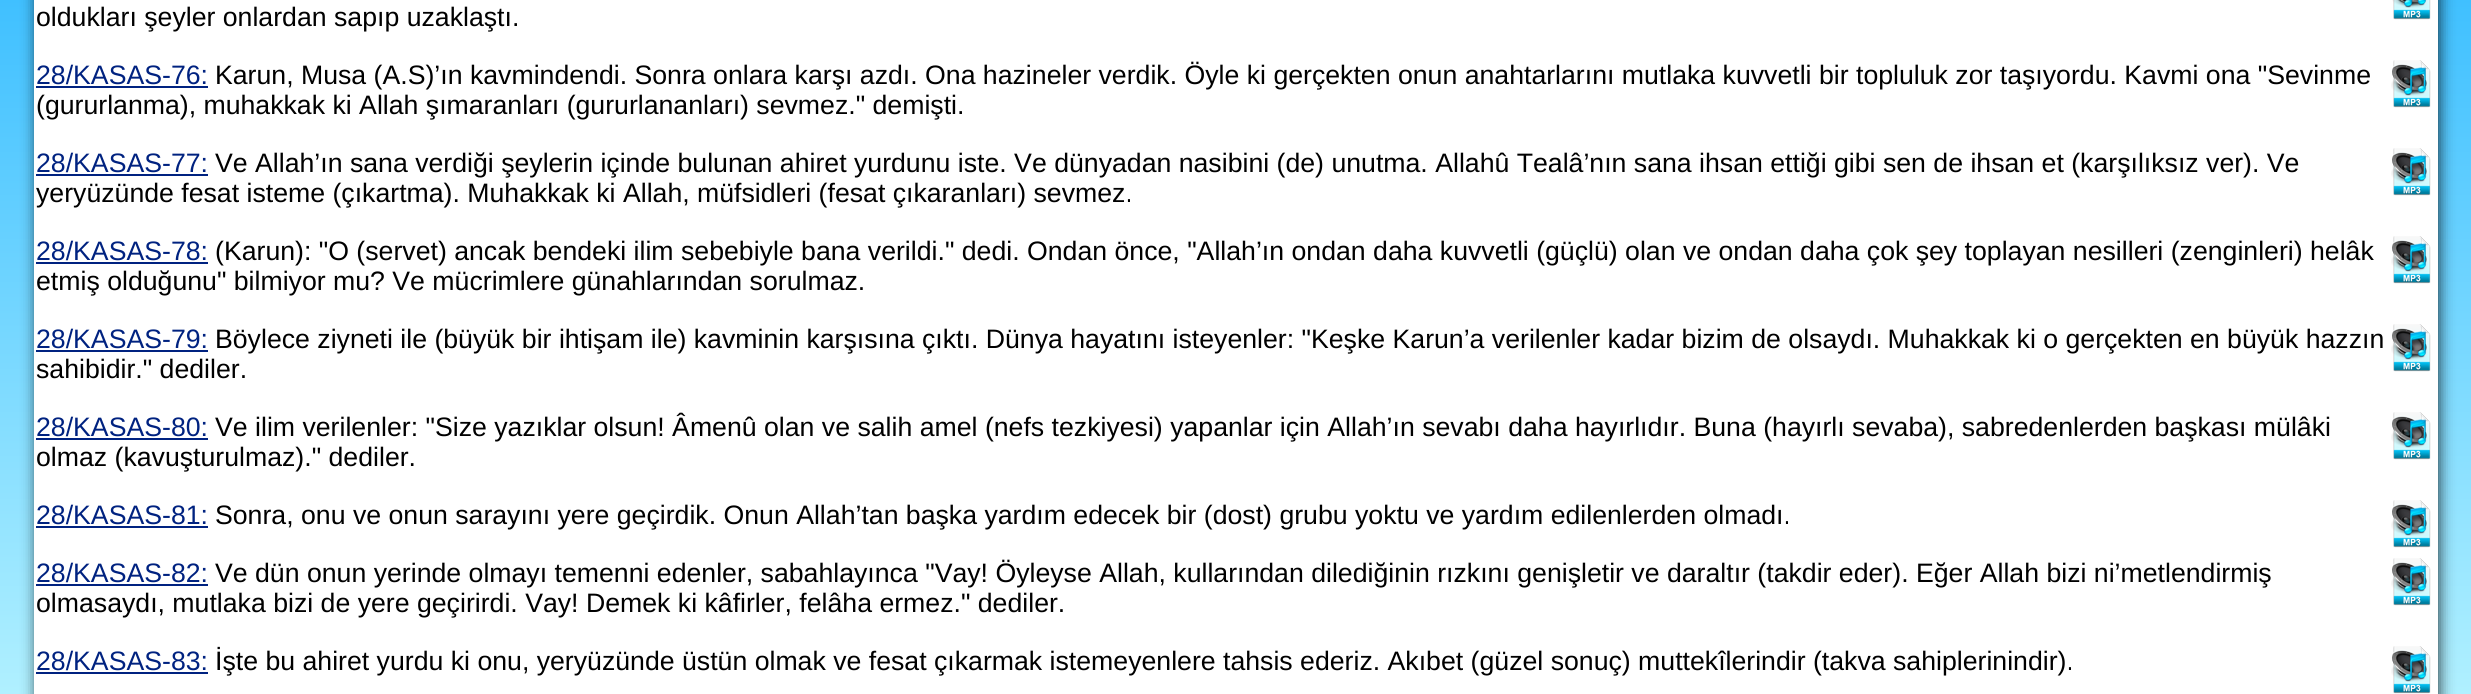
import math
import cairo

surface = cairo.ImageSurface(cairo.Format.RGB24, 2471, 694)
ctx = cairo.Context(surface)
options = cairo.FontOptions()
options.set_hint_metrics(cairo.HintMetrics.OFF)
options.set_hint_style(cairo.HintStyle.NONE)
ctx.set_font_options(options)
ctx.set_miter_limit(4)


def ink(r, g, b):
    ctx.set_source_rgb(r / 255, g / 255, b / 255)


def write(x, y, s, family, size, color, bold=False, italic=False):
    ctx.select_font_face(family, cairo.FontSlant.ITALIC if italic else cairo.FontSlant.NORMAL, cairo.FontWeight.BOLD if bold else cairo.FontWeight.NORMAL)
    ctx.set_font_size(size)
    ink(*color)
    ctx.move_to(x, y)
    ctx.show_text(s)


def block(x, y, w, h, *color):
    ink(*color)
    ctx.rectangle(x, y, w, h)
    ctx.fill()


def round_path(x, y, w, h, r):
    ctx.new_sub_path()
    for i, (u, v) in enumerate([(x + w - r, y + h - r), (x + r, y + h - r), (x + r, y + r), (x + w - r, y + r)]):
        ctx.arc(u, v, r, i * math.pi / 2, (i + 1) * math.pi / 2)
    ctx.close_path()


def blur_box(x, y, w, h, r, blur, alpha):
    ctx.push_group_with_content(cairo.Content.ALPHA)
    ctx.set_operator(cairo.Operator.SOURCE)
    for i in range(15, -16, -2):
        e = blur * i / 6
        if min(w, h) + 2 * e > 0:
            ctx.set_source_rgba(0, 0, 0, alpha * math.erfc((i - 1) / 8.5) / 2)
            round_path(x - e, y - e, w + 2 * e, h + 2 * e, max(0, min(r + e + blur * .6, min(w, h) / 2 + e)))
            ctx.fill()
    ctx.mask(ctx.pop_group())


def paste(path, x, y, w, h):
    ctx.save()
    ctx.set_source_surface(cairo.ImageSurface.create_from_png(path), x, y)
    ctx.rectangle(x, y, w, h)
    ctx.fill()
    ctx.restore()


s1 = dict(family="Liberation Sans", size=26.67, color=(0, 0, 0))
s2 = dict(family="Liberation Sans", size=26.67, color=(0, 34, 128))

ink(255, 255, 255)
ctx.paint()
gradient = cairo.LinearGradient(1236, 0, 1236, 694)
gradient.add_color_stop_rgba(0, 0.251, 0.753, 1, 1)
gradient.add_color_stop_rgba(1, 0.69, 0.941, 1, 1)
ctx.set_source(gradient)
ctx.rectangle(0, 0, 2471, 694)
ctx.fill()
ink(0, 0, 0)
blur_box(36, -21, 2404, 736, 0, 7, 0.7)
block(34, 0, 2404, 694, 255, 255, 255)
write(36, 26, "oldukları şeyler onlardan sapıp uzaklaştı.", **s1)
paste("pic1.png", 2392, 0, 39, 20)
write(36, 84, "28/KASAS-76:", **s2)
block(36, 86, 172, 2, 0, 34, 128)
write(215, 84, "Karun, Musa (A.S)’ın kavmindendi. Sonra onlara karşı azdı. Ona hazineler verdik. Öyle ki gerçekten onun anahtarlarını mutlaka kuvvetli bir topluluk zor taşıyordu. Kavmi ona \"Sevinme", **s1)
paste("pic2.png", 2391, 60, 40, 48)
write(36, 114, "(gururlanma), muhakkak ki Allah şımaranları (gururlananları) sevmez.\" demişti.", **s1)
write(36, 172, "28/KASAS-77:", **s2)
block(36, 174, 172, 2, 0, 34, 128)
write(215, 172, "Ve Allah’ın sana verdiği şeylerin içinde bulunan ahiret yurdunu iste. Ve dünyadan nasibini (de) unutma. Allahû Tealâ’nın sana ihsan ettiği gibi sen de ihsan et (karşılıksız ver). Ve", **s1)
paste("pic2.png", 2391, 148, 40, 48)
write(36, 202, "yeryüzünde fesat isteme (çıkartma). Muhakkak ki Allah, müfsidleri (fesat çıkaranları) sevmez.", **s1)
write(36, 260, "28/KASAS-78:", **s2)
block(36, 262, 172, 2, 0, 34, 128)
write(215, 260, "(Karun): \"O (servet) ancak bendeki ilim sebebiyle bana verildi.\" dedi. Ondan önce, \"Allah’ın ondan daha kuvvetli (güçlü) olan ve ondan daha çok şey toplayan nesilleri (zenginleri) helâk", **s1)
paste("pic2.png", 2391, 236, 40, 48)
write(36, 290, "etmiş olduğunu\" bilmiyor mu? Ve mücrimlere günahlarından sorulmaz.", **s1)
write(36, 348, "28/KASAS-79:", **s2)
block(36, 350, 172, 2, 0, 34, 128)
write(215, 348, "Böylece ziyneti ile (büyük bir ihtişam ile) kavminin karşısına çıktı. Dünya hayatını isteyenler: \"Keşke Karun’a verilenler kadar bizim de olsaydı. Muhakkak ki o gerçekten en büyük hazzın", **s1)
paste("pic2.png", 2391, 324, 40, 48)
write(36, 378, "sahibidir.\" dediler.", **s1)
write(36, 436, "28/KASAS-80:", **s2)
block(36, 438, 172, 2, 0, 34, 128)
write(215, 436, "Ve ilim verilenler: \"Size yazıklar olsun! Âmenû olan ve salih amel (nefs tezkiyesi) yapanlar için Allah’ın sevabı daha hayırlıdır. Buna (hayırlı sevaba), sabredenlerden başkası mülâki", **s1)
paste("pic2.png", 2391, 412, 40, 48)
write(36, 466, "olmaz (kavuşturulmaz).\" dediler.", **s1)
write(36, 524, "28/KASAS-81:", **s2)
block(36, 526, 172, 2, 0, 34, 128)
write(215, 524, "Sonra, onu ve onun sarayını yere geçirdik. Onun Allah’tan başka yardım edecek bir (dost) grubu yoktu ve yardım edilenlerden olmadı.", **s1)
paste("pic2.png", 2391, 500, 40, 48)
write(36, 582, "28/KASAS-82:", **s2)
block(36, 584, 172, 2, 0, 34, 128)
write(215, 582, "Ve dün onun yerinde olmayı temenni edenler, sabahlayınca \"Vay! Öyleyse Allah, kullarından dilediğinin rızkını genişletir ve daraltır (takdir eder). Eğer Allah bizi ni’metlendirmiş", **s1)
paste("pic2.png", 2391, 558, 40, 48)
write(36, 612, "olmasaydı, mutlaka bizi de yere geçirirdi. Vay! Demek ki kâfirler, felâha ermez.\" dediler.", **s1)
write(36, 670, "28/KASAS-83:", **s2)
block(36, 672, 172, 2, 0, 34, 128)
write(215, 670, "İşte bu ahiret yurdu ki onu, yeryüzünde üstün olmak ve fesat çıkarmak istemeyenlere tahsis ederiz. Akıbet (güzel sonuç) muttekîlerindir (takva sahiplerinindir).", **s1)
paste("pic2.png", 2391, 646, 40, 48)
surface.write_to_png("screenshot.png")
